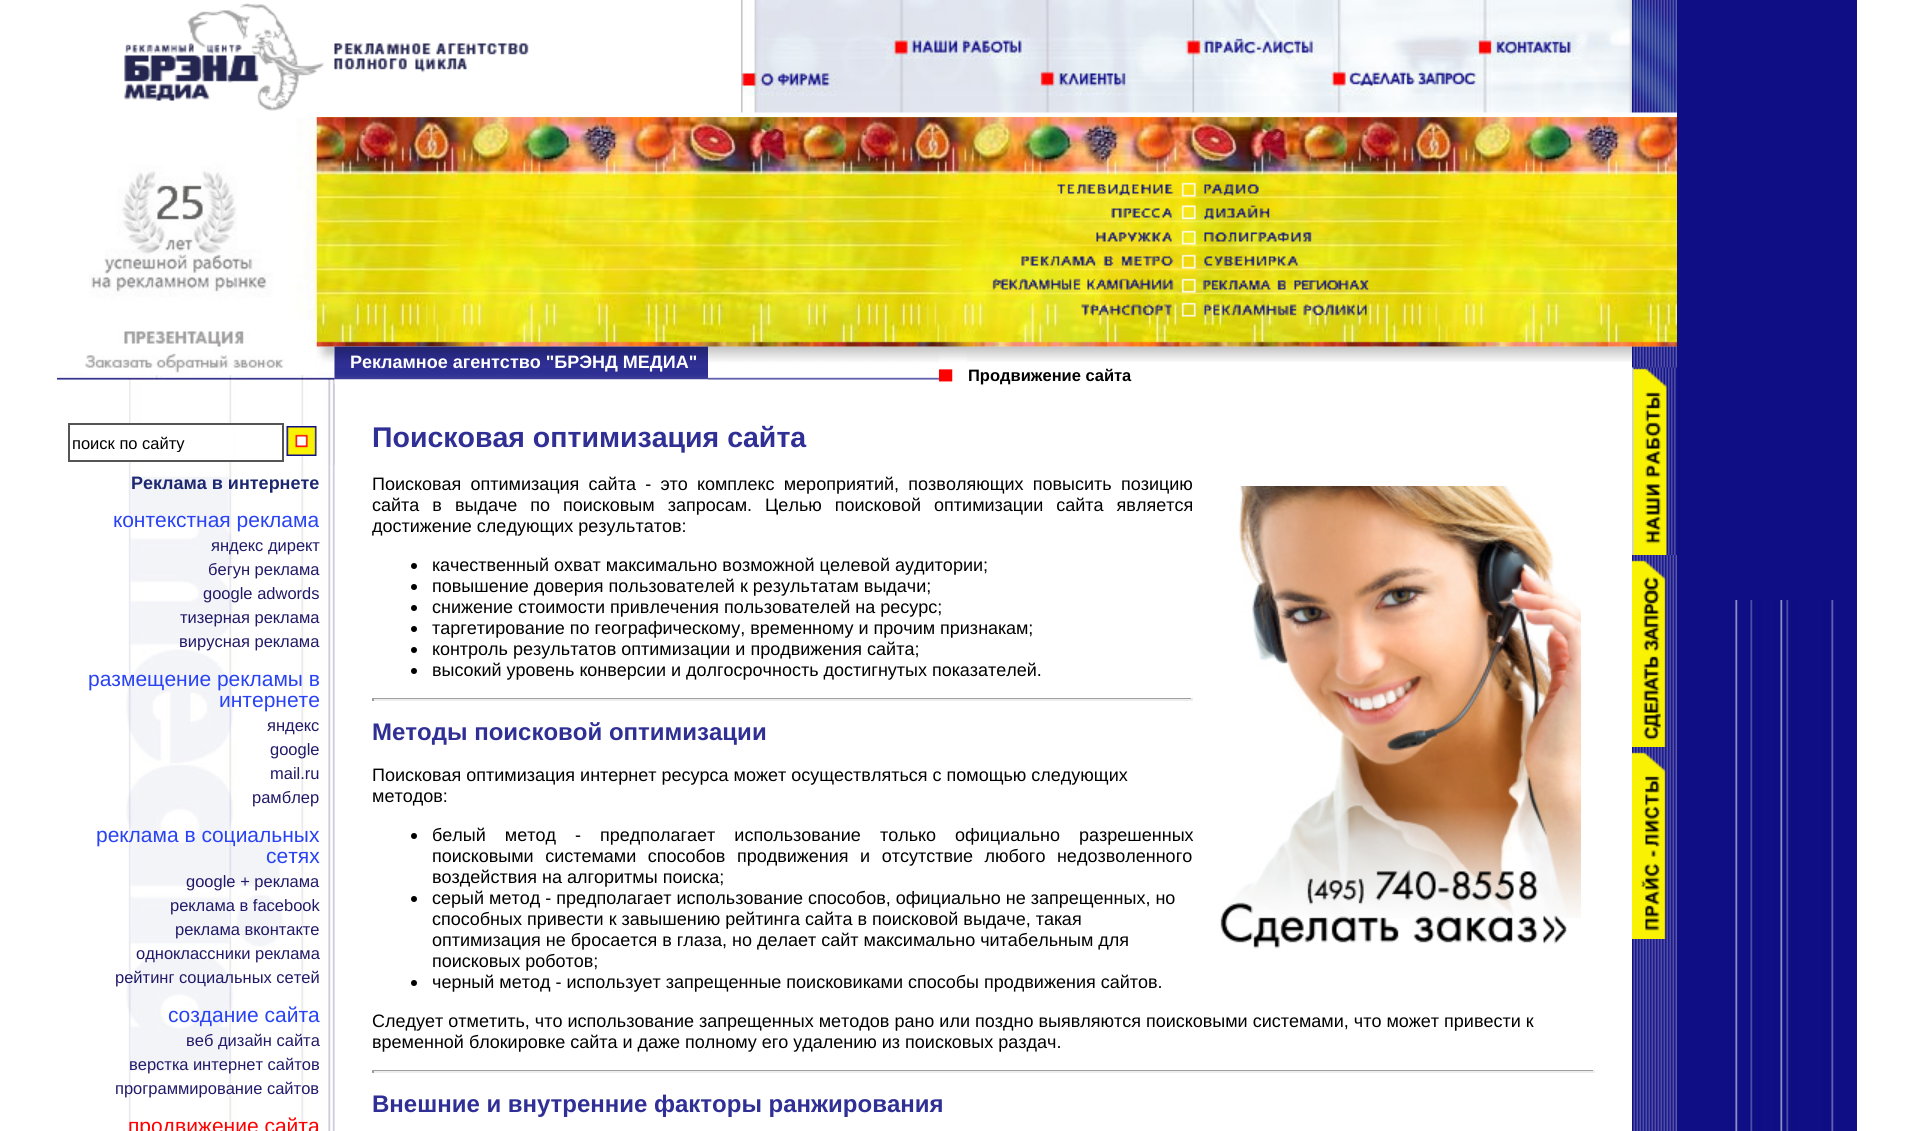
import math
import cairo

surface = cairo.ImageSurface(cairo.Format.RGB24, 1914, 1131)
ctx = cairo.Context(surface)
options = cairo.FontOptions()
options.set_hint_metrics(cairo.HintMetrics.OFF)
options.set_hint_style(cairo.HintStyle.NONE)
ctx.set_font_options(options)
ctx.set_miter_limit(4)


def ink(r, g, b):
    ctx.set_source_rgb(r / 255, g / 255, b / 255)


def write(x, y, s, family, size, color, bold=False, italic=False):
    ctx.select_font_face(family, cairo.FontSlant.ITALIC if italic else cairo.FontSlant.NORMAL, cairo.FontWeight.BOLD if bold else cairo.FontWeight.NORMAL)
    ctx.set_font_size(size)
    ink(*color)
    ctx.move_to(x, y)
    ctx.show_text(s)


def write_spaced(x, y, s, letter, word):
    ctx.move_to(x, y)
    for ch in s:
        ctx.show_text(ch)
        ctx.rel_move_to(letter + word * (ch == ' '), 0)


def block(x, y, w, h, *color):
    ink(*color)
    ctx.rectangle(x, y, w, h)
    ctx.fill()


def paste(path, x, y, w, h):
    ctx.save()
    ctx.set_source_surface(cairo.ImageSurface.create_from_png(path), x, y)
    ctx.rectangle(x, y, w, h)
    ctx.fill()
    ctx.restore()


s1 = dict(family="Liberation Sans", size=16.5, color=(0, 0, 0))
s2 = dict(family="Liberation Sans", size=18, color=(30, 40, 112), bold=True)
s3 = dict(family="Liberation Sans", size=21, color=(41, 67, 242))
s4 = dict(family="Liberation Sans", size=16.5, color=(33, 26, 104))
s5 = dict(family="Liberation Sans", size=21, color=(255, 0, 0))
s6 = dict(family="Liberation Sans", size=18, color=(255, 255, 255), bold=True)
s7 = dict(family="Liberation Sans", size=16.5, color=(0, 0, 0), bold=True)
s8 = dict(family="Liberation Sans", size=28.5, color=(47, 47, 149), bold=True)
s9 = dict(family="Liberation Sans", size=18, color=(0, 0, 0))
s10 = dict(family="Liberation Sans", size=24, color=(47, 47, 149), bold=True)

ink(255, 255, 255)
ctx.paint()
paste("pic1.png", 124, 3, 405, 108)
paste("pic2.png", 741, 0, 891, 113)
paste("pic3.png", 1632, 0, 45, 113)
paste("pic8.png", 129, 346, 206, 119)
paste("pic9.png", 57, 346, 278, 34)
block(708, 346, 924, 1, 211, 211, 211)
paste("pic14.png", 708, 346, 231, 34)
paste("pic13.png", 952, 347, 680, 15)
paste("pic15.png", 939, 346, 14, 36)
paste("pic16.png", 952, 346, 15, 36)
paste("pic18.png", 1632, 346, 45, 785)
paste("pic19.png", 1632, 346, 45, 22)
paste("pic6.png", 316, 117, 1361, 230)
paste("pic4.png", 89, 117, 228, 225)
paste("pic5.png", 85, 319, 232, 56)
paste("pic7.png", 992, 182, 377, 135)
block(334, 384, 1, 81, 211, 208, 226)
block(129, 425, 103, 35, 255, 255, 255)
ctx.rectangle(69, 424, 214, 37)
ink(85, 85, 85)
ctx.stroke()
ctx.save()
ctx.rectangle(72, 434, 207, 18)
ctx.clip()
write(72, 449, "поиск по сайту", **s1)
ctx.restore()
paste("pic10.png", 286, 426, 31, 30)
paste("pic11.png", 126, 465, 209, 666)
write(131, 489, "Реклама в интернете", **s2)
write(113, 527, "контекстная реклама", **s3)
write(211, 551, "яндекс директ", **s4)
write(208, 575, "бегун реклама", **s4)
write(203, 599, "google adwords", **s4)
write(180, 623, "тизерная реклама", **s4)
write(179, 647, "вирусная реклама", **s4)
write(88, 686, "размещение рекламы в", **s3)
write(219, 707, "интернете", **s3)
write(267, 731, "яндекс", **s4)
write(270, 755, "google", **s4)
write(270, 779, "mail.ru", **s4)
write(252, 803, "рамблер", **s4)
write(96, 842, "реклама в социальных", **s3)
write(266, 863, "сетях", **s3)
write(186, 887, "google + реклама", **s4)
write(170, 911, "реклама в facebook", **s4)
write(175, 935, "реклама вконтакте", **s4)
write(136, 959, "одноклассники реклама", **s4)
write(115, 983, "рейтинг социальных сетей", **s4)
write(168, 1022, "создание сайта", **s3)
write(186, 1046, "веб дизайн сайта", **s4)
write(129, 1070, "верстка интернет сайтов", **s4)
write(115, 1094, "программирование сайтов", **s4)
write(128, 1133, "продвижение сайта", **s5)
paste("pic12.png", 334, 346, 374, 34)
write(350, 368, "Рекламное агентство \"БРЭНД МЕДИА\"", **s6)
write(968, 381, "Продвижение сайта", **s7)
write(372, 447, "Поисковая оптимизация сайта", **s8)
ctx.select_font_face("Liberation Sans")
ctx.set_font_size(18)
ink(0, 0, 0)
write_spaced(372, 490, "Поисковая оптимизация сайта - это комплекс мероприятий, позволяющих повысить позицию", 0, 4.25)
paste("pic17.png", 1220, 486, 361, 463)
write_spaced(372, 511, "сайта в выдаче по поисковым запросам. Целью поисковой оптимизации сайта является", 0, 8)
write(372, 532, "достижение следующих результатов:", **s9)
ctx.new_path()
ctx.arc(414, 566, 3, 0, 2 * math.pi)
ctx.fill()
write(432, 571, "качественный охват максимально возможной целевой аудитории;", **s9)
ctx.new_path()
ctx.arc(414, 587, 3, 0, 2 * math.pi)
ctx.fill()
write(432, 592, "повышение доверия пользователей к результатам выдачи;", **s9)
ctx.new_path()
ctx.arc(414, 608, 3, 0, 2 * math.pi)
ctx.fill()
write(432, 613, "снижение стоимости привлечения пользователей на ресурс;", **s9)
ctx.new_path()
ctx.arc(414, 629, 3, 0, 2 * math.pi)
ctx.fill()
write(432, 634, "таргетирование по географическому, временному и прочим признакам;", **s9)
ctx.new_path()
ctx.arc(414, 650, 3, 0, 2 * math.pi)
ctx.fill()
write(432, 655, "контроль результатов оптимизации и продвижения сайта;", **s9)
ctx.new_path()
ctx.arc(414, 671, 3, 0, 2 * math.pi)
ctx.fill()
write(432, 676, "высокий уровень конверсии и долгосрочность достигнутых показателей.", **s9)
block(372, 698, 821, 1, 159, 159, 159)
block(1191, 698, 2, 3, 238, 238, 238)
block(372, 699, 821, 2, 238, 238, 238)
block(372, 698, 2, 3, 159, 159, 159)
write(372, 740, "Методы поисковой оптимизации", **s10)
write(372, 781, "Поисковая оптимизация интернет ресурса может осуществляться с помощью следующих", **s9)
write(372, 802, "методов:", **s9)
ctx.new_path()
ctx.arc(414, 836, 3, 0, 2 * math.pi)
ctx.fill()
write_spaced(432, 841, "белый метод - предполагает использование только официально разрешенных", 0, 14)
write_spaced(432, 862, "поисковыми системами способов продвижения и отсутствие любого недозволенного", 0, 6.5)
write(432, 883, "воздействия на алгоритмы поиска;", **s9)
ctx.new_path()
ctx.arc(414, 899, 3, 0, 2 * math.pi)
ctx.fill()
write(432, 904, "серый метод - предполагает использование способов, официально не запрещенных, но", **s9)
write(432, 925, "способных привести к завышению рейтинга сайта в поисковой выдаче, такая", **s9)
write(432, 946, "оптимизация не бросается в глаза, но делает сайт максимально читабельным для", **s9)
write(432, 967, "поисковых роботов;", **s9)
ctx.new_path()
ctx.arc(414, 983, 3, 0, 2 * math.pi)
ctx.fill()
write(432, 988, "черный метод - использует запрещенные поисковиками способы продвижения сайтов.", **s9)
write(372, 1027, "Следует отметить, что использование запрещенных методов рано или поздно выявляются поисковыми системами, что может привести к", **s9)
write(372, 1048, "временной блокировке сайта и даже полному его удалению из поисковых раздач.", **s9)
block(372, 1070, 1223, 1, 159, 159, 159)
block(1593, 1070, 2, 3, 238, 238, 238)
block(372, 1071, 1223, 2, 238, 238, 238)
block(372, 1070, 2, 3, 159, 159, 159)
write(372, 1112, "Внешние и внутренние факторы ранжирования", **s10)
paste("pic20.png", 1632, 367, 45, 188)
paste("pic21.png", 1632, 560, 34, 187)
paste("pic22.png", 1632, 752, 34, 187)
block(1677, 0, 180, 1131, 15, 14, 133)
paste("pic23.png", 1730, 600, 104, 531)
surface.write_to_png("screenshot.png")
